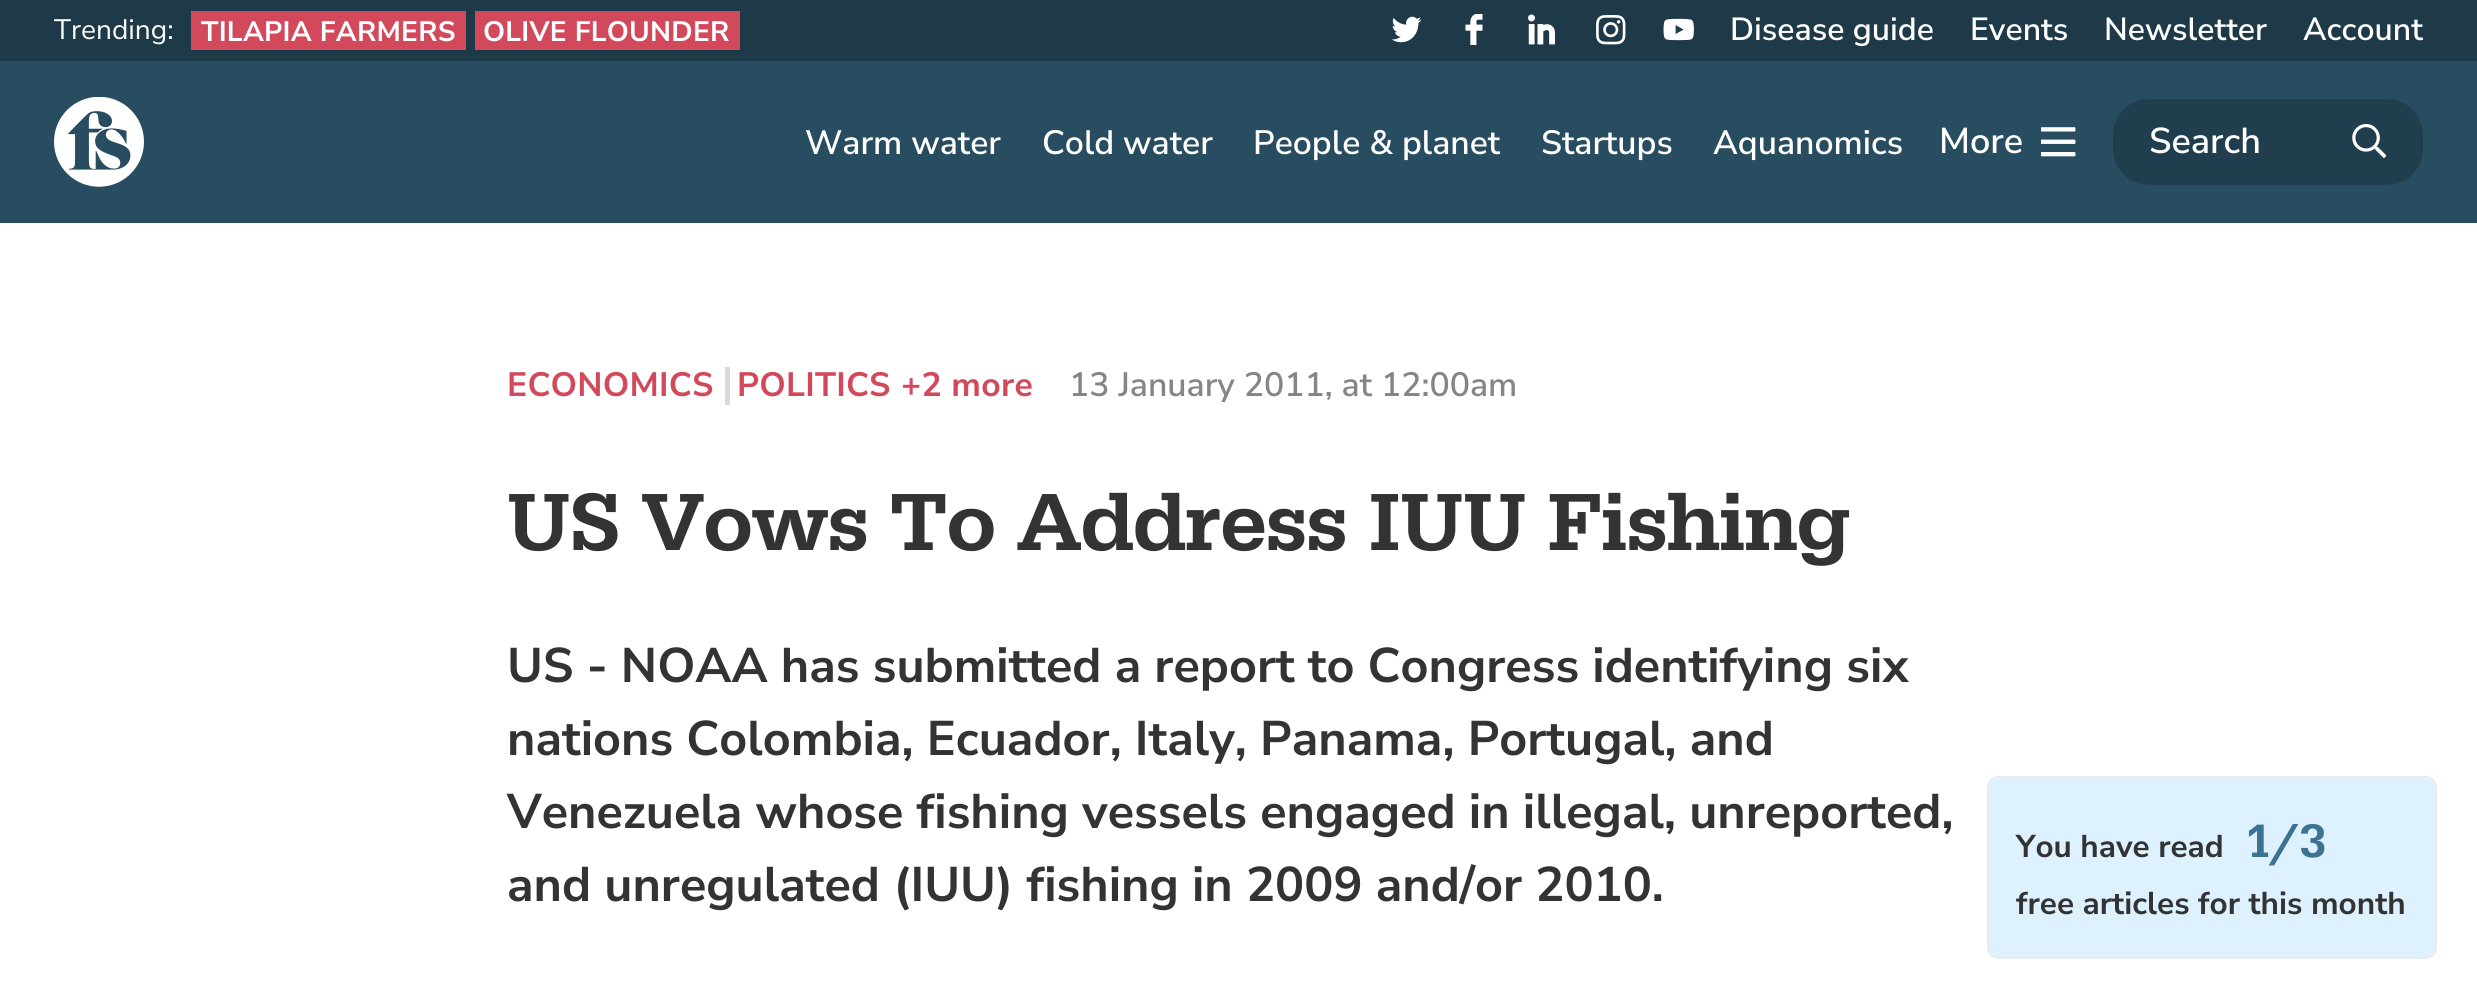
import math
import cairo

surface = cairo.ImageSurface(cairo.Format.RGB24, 2477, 998)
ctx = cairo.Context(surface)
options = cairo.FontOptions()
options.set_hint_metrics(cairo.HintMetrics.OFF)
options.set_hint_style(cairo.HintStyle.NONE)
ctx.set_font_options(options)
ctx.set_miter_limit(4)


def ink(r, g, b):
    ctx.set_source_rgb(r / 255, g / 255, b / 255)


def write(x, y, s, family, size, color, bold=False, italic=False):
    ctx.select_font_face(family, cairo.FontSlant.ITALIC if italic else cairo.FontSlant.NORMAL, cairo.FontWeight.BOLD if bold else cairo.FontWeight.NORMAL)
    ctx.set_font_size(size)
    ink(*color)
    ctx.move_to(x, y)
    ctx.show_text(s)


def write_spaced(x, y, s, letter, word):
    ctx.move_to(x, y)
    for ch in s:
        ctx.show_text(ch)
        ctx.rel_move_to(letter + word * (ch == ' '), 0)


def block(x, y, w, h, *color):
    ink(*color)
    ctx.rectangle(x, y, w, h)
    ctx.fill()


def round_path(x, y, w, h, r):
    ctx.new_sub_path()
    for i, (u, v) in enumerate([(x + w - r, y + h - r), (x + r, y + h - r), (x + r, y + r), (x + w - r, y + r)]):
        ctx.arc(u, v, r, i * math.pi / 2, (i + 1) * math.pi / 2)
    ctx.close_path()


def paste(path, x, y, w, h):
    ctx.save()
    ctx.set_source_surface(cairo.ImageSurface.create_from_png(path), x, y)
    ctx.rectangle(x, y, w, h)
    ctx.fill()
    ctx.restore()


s1 = dict(family="Nunito Sans", size=28.1, color=(255, 255, 255))
s2 = dict(family="Nunito Sans SemiBold", size=32, color=(255, 255, 255))
s3 = dict(family="Nunito Sans SemiBold", size=33.75, color=(255, 255, 255))
s4 = dict(family="Nunito Sans SemiBold", size=36, color=(255, 255, 255))
s5 = dict(family="Nunito Sans SemiBold", size=33.75, color=(133, 133, 132))
s6 = dict(family="Nunito Sans", size=31.5, color=(51, 51, 51), bold=True)
s7 = dict(family="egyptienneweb", size=48.6, color=(61, 115, 145))
s8 = dict(family="Nunito Sans", size=48.6, color=(51, 51, 51), bold=True)

ink(255, 255, 255)
ctx.paint()
block(0, 0, 2477, 61, 30, 57, 72)
write(54, 39, "Trending:", **s1)
block(191, 11, 275, 39, 209, 73, 91)
ctx.select_font_face("Nunito Sans", cairo.FontSlant.NORMAL, cairo.FontWeight.BOLD)
ink(255, 255, 255)
write_spaced(201, 41, "TILAPIA FARMERS", 0.25, 0)
block(475, 11, 265, 39, 209, 73, 91)
ink(255, 255, 255)
write_spaced(483, 41, "OLIVE FLOUNDER", 0.25, 0)
paste("pic1.png", 1391, 16, 31, 27)
paste("pic2.png", 1465, 14, 18, 31)
paste("pic3.png", 1528, 14, 27, 31)
paste("pic4.png", 1596, 15, 30, 30)
paste("pic5.png", 1663, 18, 31, 23)
write(1730, 40, "Disease guide", **s2)
write(1970, 40, "Events", **s2)
write(2104, 40, "Newsletter", **s2)
write(2303, 40, "Account", **s2)
block(0, 61, 2477, 162, 40, 76, 96)
paste("pic6.png", 54, 97, 90, 90)
write(805, 154, "Warm water", **s3)
write(1042, 154, "Cold water", **s3)
write(1253, 154, "People & planet", **s3)
write(1541, 154, "Startups", **s3)
write(1713, 154, "Aquanomics", **s3)
write(1939, 153, "More", **s4)
paste("pic7.png", 2041, 127, 35, 30)
ink(33, 62, 78)
round_path(2113, 99, 310, 86, 36)
ctx.fill()
write(2149, 153, "Search", **s4)
paste("pic8.png", 2352, 124, 35, 34)
ctx.select_font_face("Nunito Sans", cairo.FontSlant.NORMAL, cairo.FontWeight.BOLD)
ctx.set_font_size(33.75)
ink(209, 73, 91)
write_spaced(507, 396, "ECONOMICS", 0.25, 0)
block(725, 367, 5, 38, 217, 217, 217)
ink(209, 73, 91)
write_spaced(737, 396, "POLITICS", 0.25, 0)
write_spaced(901, 396, "+2 more", 0.25, 0)
write(1069, 396, "13 January 2011, at 12:00am", **s5)
ctx.select_font_face("egyptienneweb")
ctx.set_font_size(84)
ink(51, 51, 51)
write_spaced(507, 550, "US Vows To Address IUU Fishing", -0.85, 0)
ink(221, 242, 254)
round_path(1988, 777, 448, 181, 10)
ctx.fill_preserve()
ink(235, 235, 235)
ctx.stroke()
write(2016, 857, "You have read", **s6)
write(2245, 857, "1/3", **s7)
write(2016, 914, "free articles for this month", **s6)
write(507, 682, "US - NOAA has submitted a report to Congress identifying six", **s8)
write(507, 755, "nations Colombia, Ecuador, Italy, Panama, Portugal, and", **s8)
write(507, 828, "Venezuela whose fishing vessels engaged in illegal, unreported,", **s8)
write(507, 901, "and unregulated (IUU) fishing in 2009 and/or 2010.", **s8)
surface.write_to_png("screenshot.png")
